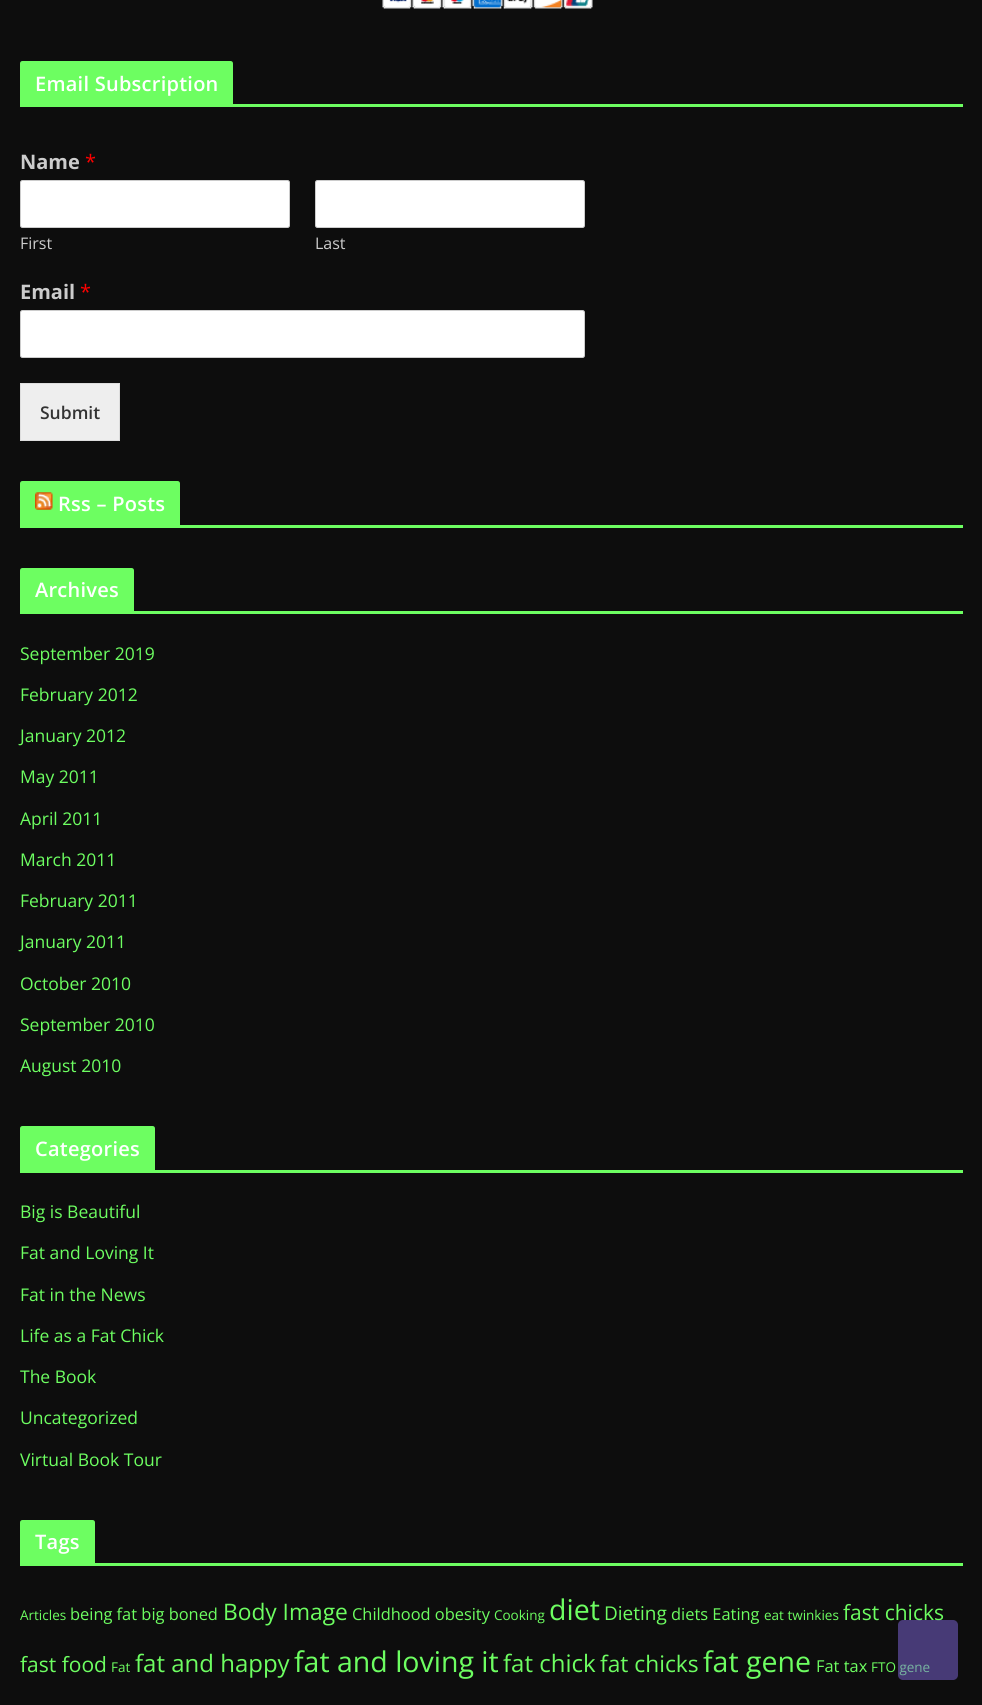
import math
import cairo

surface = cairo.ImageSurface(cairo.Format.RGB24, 982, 1705)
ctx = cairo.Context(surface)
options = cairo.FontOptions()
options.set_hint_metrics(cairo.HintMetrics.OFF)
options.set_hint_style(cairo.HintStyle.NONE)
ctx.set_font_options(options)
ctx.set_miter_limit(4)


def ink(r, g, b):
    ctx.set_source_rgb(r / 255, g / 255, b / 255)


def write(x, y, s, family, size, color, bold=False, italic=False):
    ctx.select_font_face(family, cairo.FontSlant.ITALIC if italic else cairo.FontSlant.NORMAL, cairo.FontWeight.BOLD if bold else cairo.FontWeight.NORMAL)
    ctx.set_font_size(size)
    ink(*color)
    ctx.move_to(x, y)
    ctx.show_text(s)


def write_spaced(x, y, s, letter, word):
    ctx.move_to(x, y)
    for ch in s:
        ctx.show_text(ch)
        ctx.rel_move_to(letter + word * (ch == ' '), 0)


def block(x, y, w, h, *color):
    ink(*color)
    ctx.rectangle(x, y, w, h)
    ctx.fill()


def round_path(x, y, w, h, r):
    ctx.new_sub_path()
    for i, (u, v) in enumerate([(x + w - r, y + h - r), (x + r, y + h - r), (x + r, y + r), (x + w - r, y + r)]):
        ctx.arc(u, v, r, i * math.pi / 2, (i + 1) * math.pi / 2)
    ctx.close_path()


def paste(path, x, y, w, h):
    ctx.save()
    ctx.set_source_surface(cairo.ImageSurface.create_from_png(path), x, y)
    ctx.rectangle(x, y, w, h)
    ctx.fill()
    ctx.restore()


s1 = dict(family="Open Sans", size=20, color=(204, 204, 204), bold=True)
s2 = dict(family="Open Sans", size=20, color=(255, 0, 0))
s3 = dict(family="Open Sans", size=16, color=(204, 204, 204))
s4 = dict(family="Open Sans SemiBold", size=17.5, color=(51, 51, 51))
s5 = dict(family="Open Sans", size=17.5, color=(109, 254, 97))
s6 = dict(family="Open Sans", size=13.5, color=(109, 254, 97))
s7 = dict(family="Open Sans", size=16.4, color=(109, 254, 97))
s8 = dict(family="Open Sans", size=22.75, color=(109, 254, 97))
s9 = dict(family="Open Sans", size=28.5, color=(109, 254, 97))
s10 = dict(family="Open Sans", size=19, color=(109, 254, 97))
s11 = dict(family="Open Sans", size=21, color=(109, 254, 97))
s12 = dict(family="Open Sans", size=24, color=(109, 254, 97))

ink(13, 13, 13)
ctx.paint()
paste("pic1.png", 382, 0, 211, 9)
block(20, 104, 943, 3, 109, 254, 97)
ctx.new_path()
ctx.move_to(22.5, 61)
ctx.line_to(230.5, 61)
ctx.curve_to(232, 61, 233, 62, 233, 63.5)
ctx.line_to(233, 104)
ctx.line_to(20, 104)
ctx.line_to(20, 63.5)
ctx.curve_to(20, 62, 21, 61, 22.5, 61)
ctx.close_path()
ctx.fill()
ctx.select_font_face("Open Sans SemiBold")
ctx.set_font_size(20)
ink(255, 255, 255)
write_spaced(35, 91, "Email Subscription", 0.25, 0)
write(20, 169, "Name", **s1)
write(85, 169, "*", **s2)
ink(255, 255, 255)
round_path(20.5, 180.5, 269, 47, 2)
ctx.fill_preserve()
ink(204, 204, 204)
ctx.set_line_width(1)
ctx.stroke()
write(20, 249, "First", **s3)
ink(255, 255, 255)
round_path(315.5, 180.5, 269, 47, 2)
ctx.fill_preserve()
ink(204, 204, 204)
ctx.stroke()
write(315, 249, "Last", **s3)
write(20, 299, "Email", **s1)
write(80, 299, "*", **s2)
ink(255, 255, 255)
round_path(20.5, 310.5, 564, 47, 2)
ctx.fill_preserve()
ink(204, 204, 204)
ctx.stroke()
ink(238, 238, 238)
ctx.rectangle(20.5, 383.5, 99, 57)
ctx.fill_preserve()
ink(221, 221, 221)
ctx.stroke()
write(40, 419, "Submit", **s4)
block(20, 525, 943, 3, 109, 254, 97)
ctx.new_path()
ctx.move_to(22.5, 481)
ctx.line_to(177.5, 481)
ctx.curve_to(179, 481, 180, 482, 180, 483.5)
ctx.line_to(180, 525)
ctx.line_to(20, 525)
ctx.line_to(20, 483.5)
ctx.curve_to(20, 482, 21, 481, 22.5, 481)
ctx.close_path()
ctx.fill()
paste("pic2.png", 35, 492, 18, 18)
ctx.set_font_size(20)
ink(255, 255, 255)
write_spaced(58, 511, "Rss – Posts", 0.25, 0)
block(20, 611, 943, 3, 109, 254, 97)
ctx.new_path()
ctx.move_to(22.5, 568)
ctx.line_to(131.5, 568)
ctx.curve_to(133, 568, 134, 569, 134, 570.5)
ctx.line_to(134, 611)
ctx.line_to(20, 611)
ctx.line_to(20, 570.5)
ctx.curve_to(20, 569, 21, 568, 22.5, 568)
ctx.close_path()
ctx.fill()
ink(255, 255, 255)
write_spaced(35, 597, "Archives", 0.25, 0)
write(20, 660, "September 2019", **s5)
write(20, 701, "February 2012", **s5)
write(20, 742, "January 2012", **s5)
write(20, 783, "May 2011", **s5)
write(20, 825, "April 2011", **s5)
write(20, 866, "March 2011", **s5)
write(20, 907, "February 2011", **s5)
write(20, 948, "January 2011", **s5)
write(20, 990, "October 2010", **s5)
write(20, 1031, "September 2010", **s5)
write(20, 1072, "August 2010", **s5)
block(20, 1170, 943, 3, 109, 254, 97)
ctx.new_path()
ctx.move_to(22.5, 1126)
ctx.line_to(152.5, 1126)
ctx.curve_to(154, 1126, 155, 1127, 155, 1128.5)
ctx.line_to(155, 1170)
ctx.line_to(20, 1170)
ctx.line_to(20, 1128.5)
ctx.curve_to(20, 1127, 21, 1126, 22.5, 1126)
ctx.close_path()
ctx.fill()
ctx.select_font_face("Open Sans SemiBold")
ctx.set_font_size(20)
ink(255, 255, 255)
write_spaced(35, 1156, "Categories", 0.25, 0)
write(20, 1218, "Big is Beautiful", **s5)
write(20, 1259, "Fat and Loving It", **s5)
write(20, 1301, "Fat in the News", **s5)
write(20, 1342, "Life as a Fat Chick", **s5)
write(20, 1383, "The Book", **s5)
write(20, 1424, "Uncategorized", **s5)
write(20, 1466, "Virtual Book Tour", **s5)
block(20, 1563, 943, 3, 109, 254, 97)
ctx.new_path()
ctx.move_to(22.5, 1520)
ctx.line_to(92.5, 1520)
ctx.curve_to(94, 1520, 95, 1521, 95, 1522.5)
ctx.line_to(95, 1563)
ctx.line_to(20, 1563)
ctx.line_to(20, 1522.5)
ctx.curve_to(20, 1521, 21, 1520, 22.5, 1520)
ctx.close_path()
ctx.fill()
ctx.select_font_face("Open Sans SemiBold")
ctx.set_font_size(20)
ink(255, 255, 255)
write_spaced(35, 1549, "Tags", 0.25, 0)
write(20, 1620, "Articles", **s6)
write(70, 1620, "being fat big boned", **s7)
write(223, 1620, "Body Image", **s8)
write(352, 1620, "Childhood obesity", **s7)
write(494, 1620, "Cooking", **s6)
write(549, 1620, "diet", **s9)
write(604, 1620, "Dieting", **s10)
write(671, 1620, "diets Eating", **s7)
write(764, 1620, "eat twinkies", **s6)
write(843, 1620, "fast chicks", **s11)
write(20, 1672, "fast food", **s11)
write(111, 1672, "Fat", **s6)
write(135, 1672, "fat and happy", **s12)
write(294, 1672, "fat and loving it", **s9)
write(503, 1672, "fat chick", **s12)
write(600, 1672, "fat chicks", **s8)
write(703, 1672, "fat gene", **s9)
write(816, 1672, "Fat tax", **s7)
write(871, 1672, "FTO gene", **s6)
ctx.set_source_rgba(0.51, 0.412, 0.875, 0.5)
round_path(898, 1620, 60, 60, 5)
ctx.fill()
surface.write_to_png("screenshot.png")
